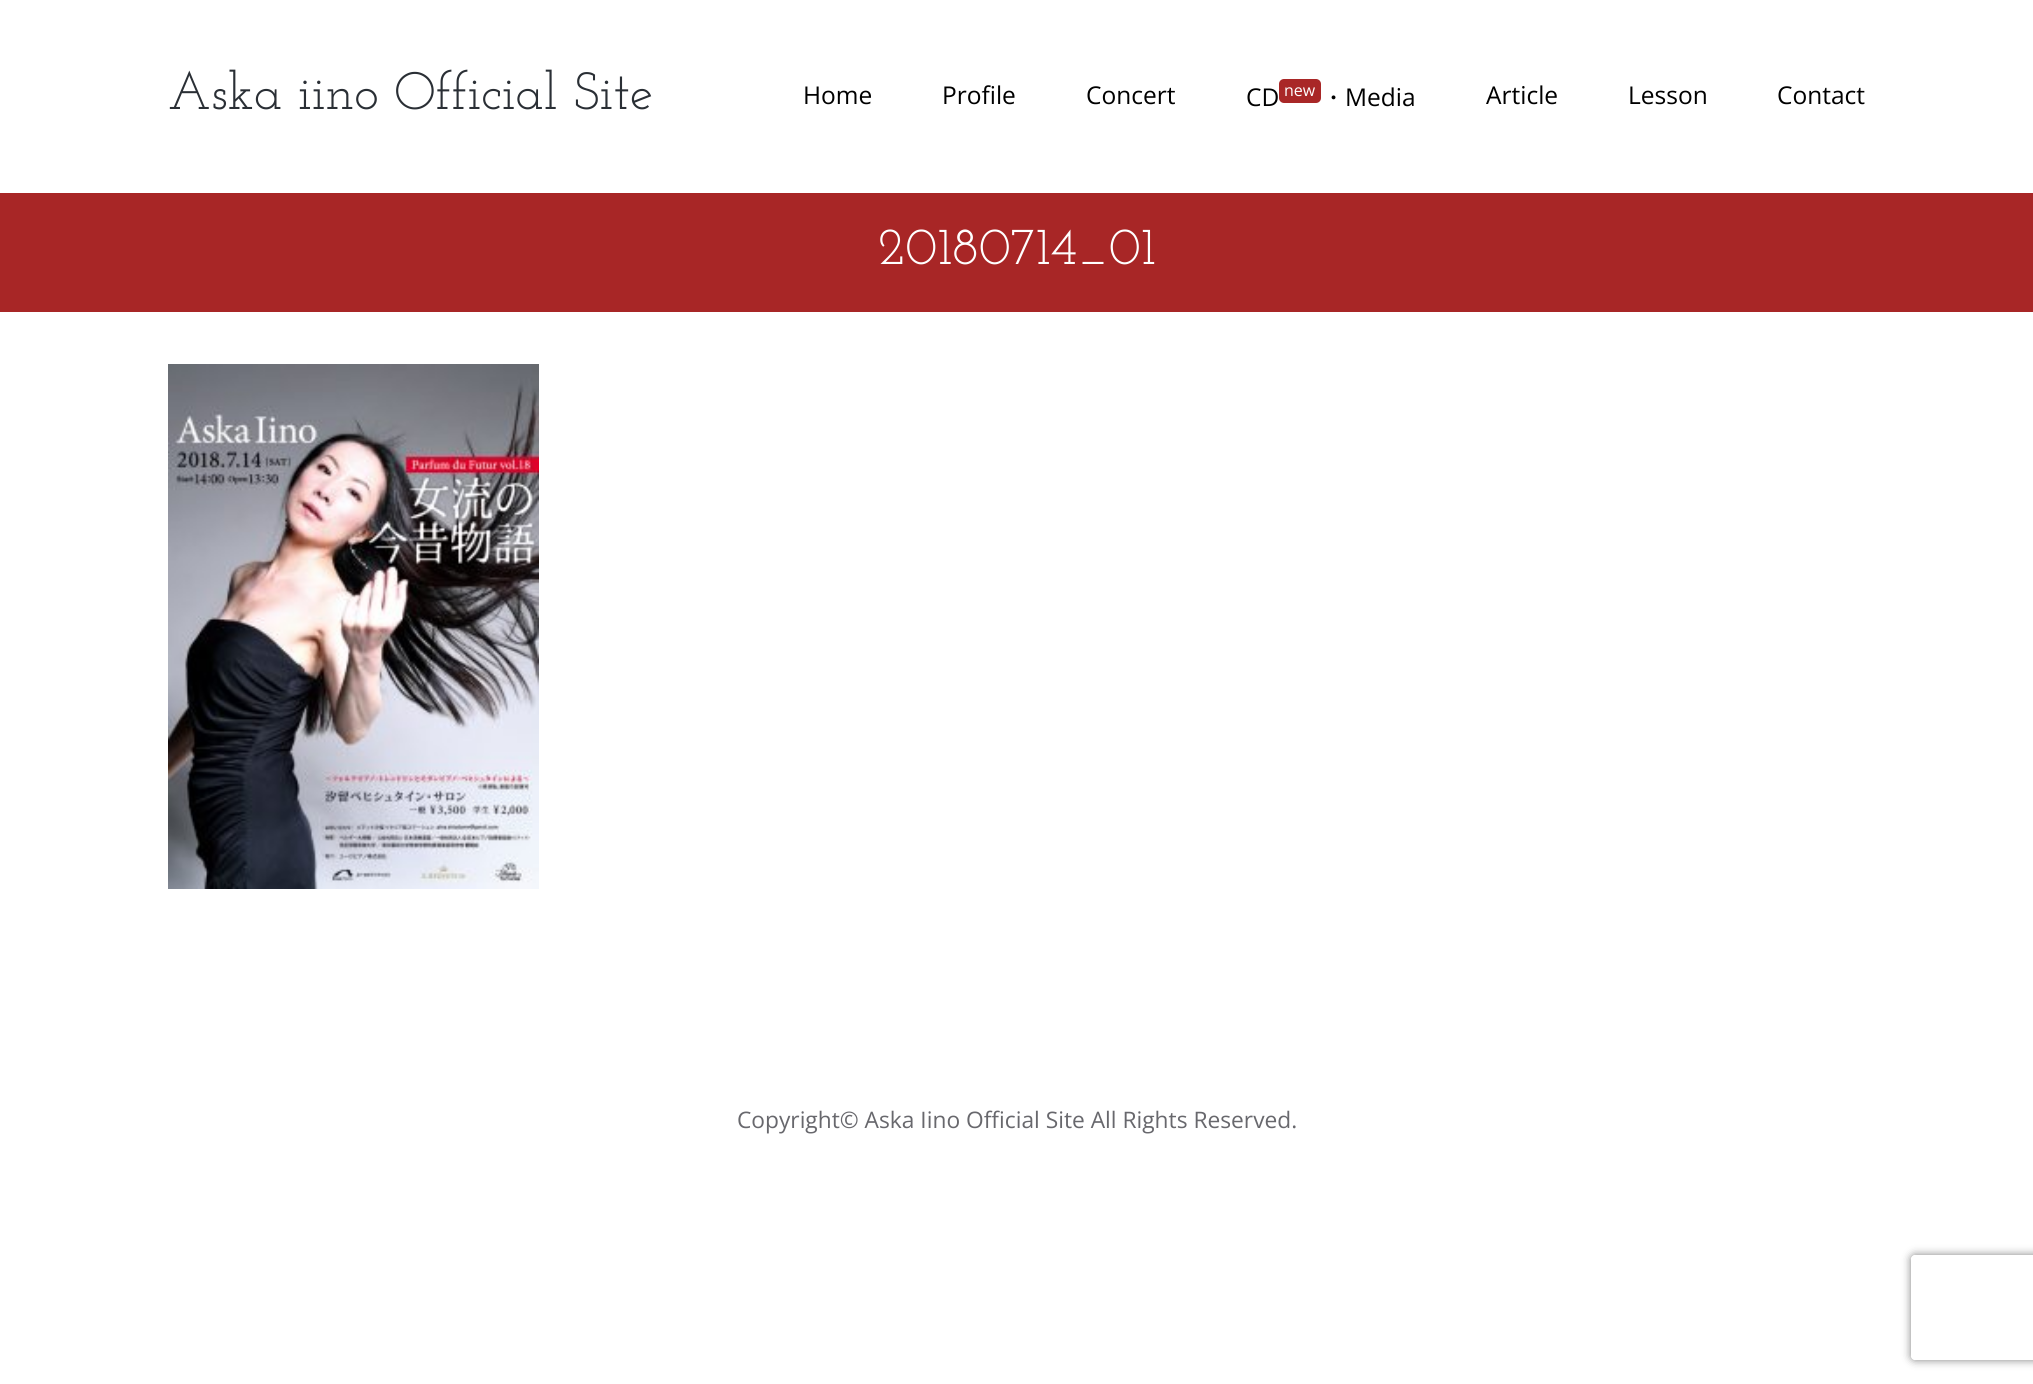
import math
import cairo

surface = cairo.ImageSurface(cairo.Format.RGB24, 2033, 1384)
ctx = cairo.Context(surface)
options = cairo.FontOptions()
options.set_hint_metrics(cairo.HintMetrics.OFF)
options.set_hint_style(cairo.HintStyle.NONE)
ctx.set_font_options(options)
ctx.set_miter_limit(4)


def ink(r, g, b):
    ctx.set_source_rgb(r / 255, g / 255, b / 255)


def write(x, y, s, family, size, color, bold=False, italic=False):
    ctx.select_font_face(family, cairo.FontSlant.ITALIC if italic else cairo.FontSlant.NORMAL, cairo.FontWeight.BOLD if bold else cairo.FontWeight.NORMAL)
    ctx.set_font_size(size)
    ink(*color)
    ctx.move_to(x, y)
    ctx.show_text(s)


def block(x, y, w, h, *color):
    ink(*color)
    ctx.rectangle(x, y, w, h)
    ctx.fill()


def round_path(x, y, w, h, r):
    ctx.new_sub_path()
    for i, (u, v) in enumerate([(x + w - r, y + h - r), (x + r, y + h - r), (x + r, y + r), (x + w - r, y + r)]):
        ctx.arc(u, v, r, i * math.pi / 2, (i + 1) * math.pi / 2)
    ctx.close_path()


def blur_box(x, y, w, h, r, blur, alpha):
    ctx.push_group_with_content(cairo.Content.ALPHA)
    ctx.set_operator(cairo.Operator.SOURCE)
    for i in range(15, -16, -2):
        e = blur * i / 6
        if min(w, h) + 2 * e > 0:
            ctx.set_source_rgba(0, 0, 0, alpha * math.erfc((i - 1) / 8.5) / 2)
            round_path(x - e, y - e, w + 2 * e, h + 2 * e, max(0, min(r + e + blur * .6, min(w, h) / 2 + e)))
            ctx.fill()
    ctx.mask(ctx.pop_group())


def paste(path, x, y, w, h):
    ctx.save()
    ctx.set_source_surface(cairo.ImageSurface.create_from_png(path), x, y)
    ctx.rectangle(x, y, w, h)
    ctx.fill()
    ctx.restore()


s1 = dict(family="Josefin Slab", size=52.5, color=(42, 47, 53))
s2 = dict(family="Open Sans", size=24.5, color=(0, 0, 0))
s3 = dict(family="Open Sans", size=16, color=(255, 255, 255))
s4 = dict(family="WenQuanYi Zen Hei Medium", size=24.5, color=(0, 0, 0))
s5 = dict(family="Josefin Slab", size=52.5, color=(255, 255, 255))
s6 = dict(family="Open Sans", size=22.75, color=(104, 104, 109))

ink(255, 255, 255)
ctx.paint()
write(168, 109, "Aska iino Official Site", **s1)
write(803, 104, "Home", **s2)
write(942, 104, "Profile", **s2)
write(1086, 104, "Concert", **s2)
write(1246, 106, "CD", **s2)
ink(169, 39, 39)
round_path(1279, 79, 42, 24, 5)
ctx.fill()
write(1284, 96, "new", **s3)
write(1321, 106, "・", **s4)
write(1345, 106, "Media", **s2)
write(1486, 104, "Article", **s2)
write(1628, 104, "Lesson", **s2)
write(1777, 104, "Contact", **s2)
block(0, 193, 2033, 119, 168, 38, 38)
write(878, 264, "20180714_01", **s5)
paste("pic1.png", 168, 364, 371, 525)
write(737, 1128, "Copyright© Aska Iino Official Site All Rights Reserved.", **s6)
ctx.save()
ctx.set_fill_rule(cairo.FillRule.EVEN_ODD)
ctx.new_path()
ctx.move_to(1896, 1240)
ctx.line_to(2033, 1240)
ctx.line_to(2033, 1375)
ctx.line_to(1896, 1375)
ctx.close_path()
ctx.move_to(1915, 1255)
ctx.line_to(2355, 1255)
ctx.curve_to(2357, 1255, 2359, 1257, 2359, 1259)
ctx.line_to(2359, 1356)
ctx.curve_to(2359, 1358, 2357, 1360, 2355, 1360)
ctx.line_to(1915, 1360)
ctx.curve_to(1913, 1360, 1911, 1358, 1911, 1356)
ctx.line_to(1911, 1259)
ctx.curve_to(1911, 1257, 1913, 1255, 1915, 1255)
ctx.close_path()
ctx.clip()
ink(128, 128, 128)
blur_box(1911, 1255, 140, 105, 4, 4.5, 1)
ctx.restore()
surface.write_to_png("screenshot.png")
